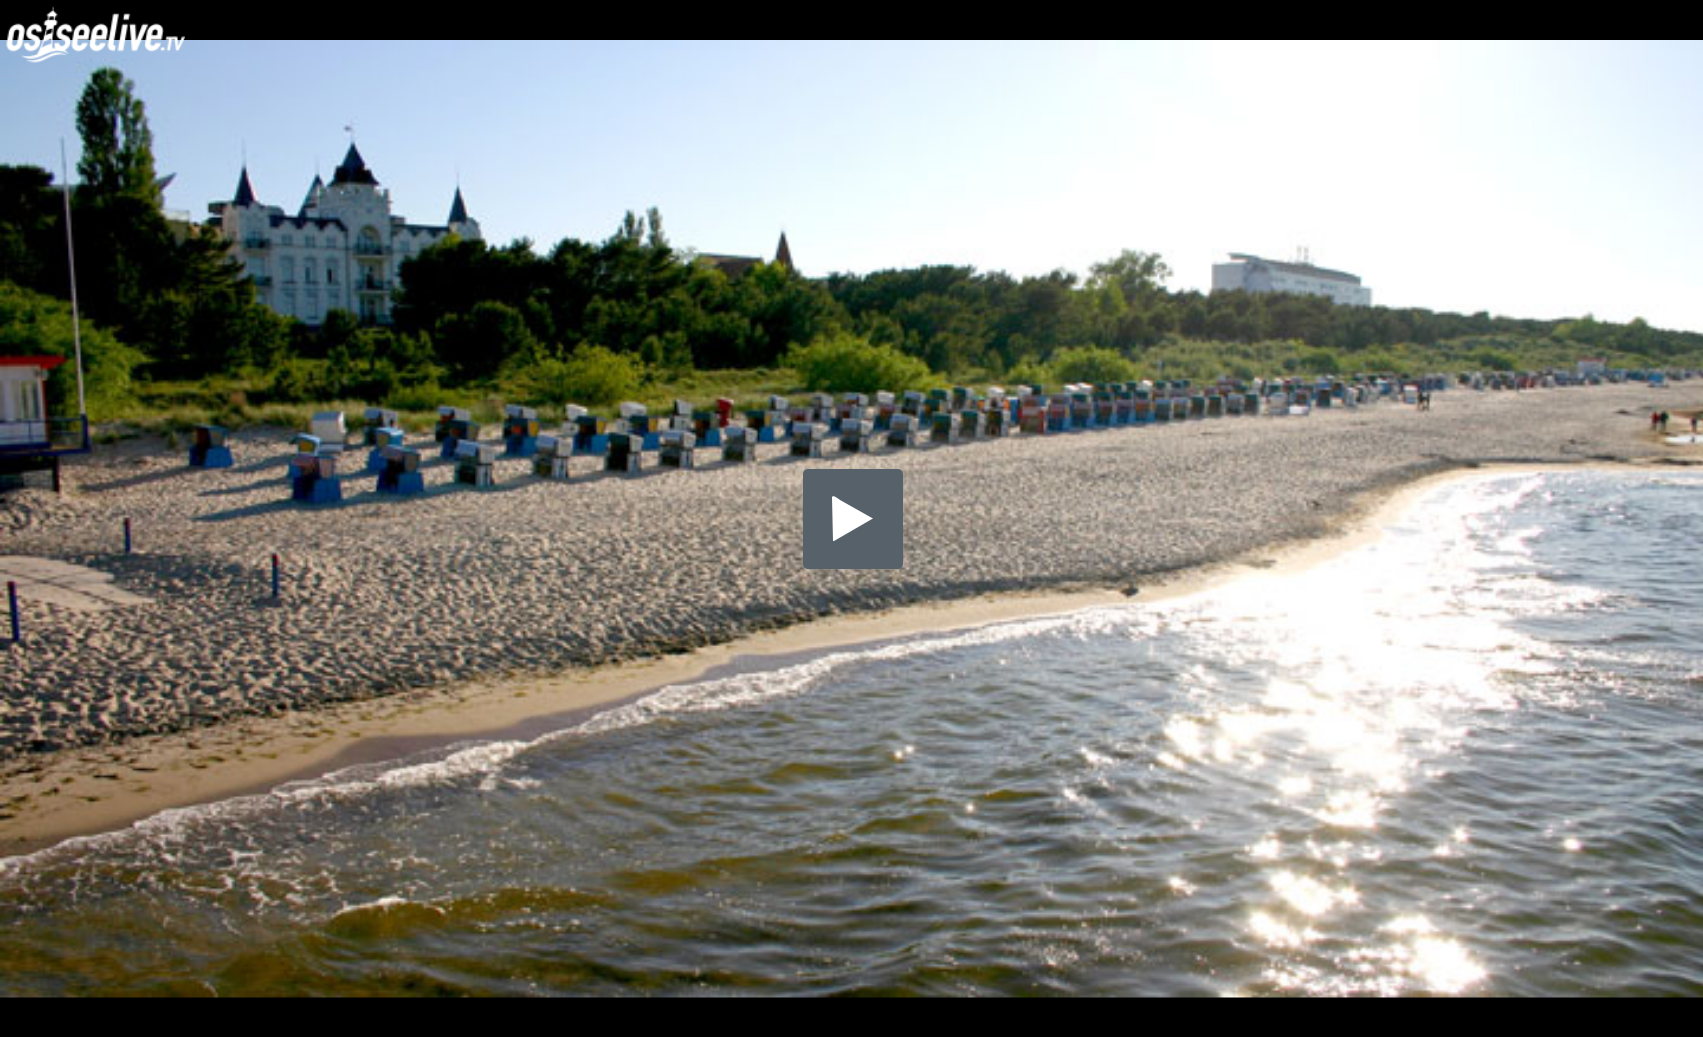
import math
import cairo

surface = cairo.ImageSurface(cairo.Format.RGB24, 1703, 1037)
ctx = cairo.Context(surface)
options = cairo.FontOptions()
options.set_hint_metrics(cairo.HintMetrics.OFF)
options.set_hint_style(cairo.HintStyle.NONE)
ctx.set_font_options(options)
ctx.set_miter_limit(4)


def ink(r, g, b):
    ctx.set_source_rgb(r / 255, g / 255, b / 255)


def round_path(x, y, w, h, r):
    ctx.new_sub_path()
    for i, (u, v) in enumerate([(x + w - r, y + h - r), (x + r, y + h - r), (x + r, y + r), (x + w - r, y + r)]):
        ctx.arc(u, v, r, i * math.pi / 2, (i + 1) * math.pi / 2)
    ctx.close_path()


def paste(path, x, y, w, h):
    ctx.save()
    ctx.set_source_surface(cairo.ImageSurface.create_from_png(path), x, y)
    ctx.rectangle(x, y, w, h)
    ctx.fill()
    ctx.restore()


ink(0, 0, 0)
ctx.paint()
paste("pic2.png", 0, 40, 1703, 958)
paste("pic1.png", 6, 6, 179, 57)
ink(87, 97, 106)
round_path(803, 469, 100, 100, 5)
ctx.fill()
ink(255, 255, 255)
ctx.new_path()
ctx.move_to(872, 519)
ctx.line_to(834, 541)
ctx.line_to(833, 541)
ctx.line_to(832, 497)
ctx.curve_to(833, 495, 836, 497, 840, 500)
ctx.line_to(872, 518)
ctx.curve_to(873, 518, 873, 519, 872, 519)
ctx.close_path()
ctx.fill()
surface.write_to_png("screenshot.png")
